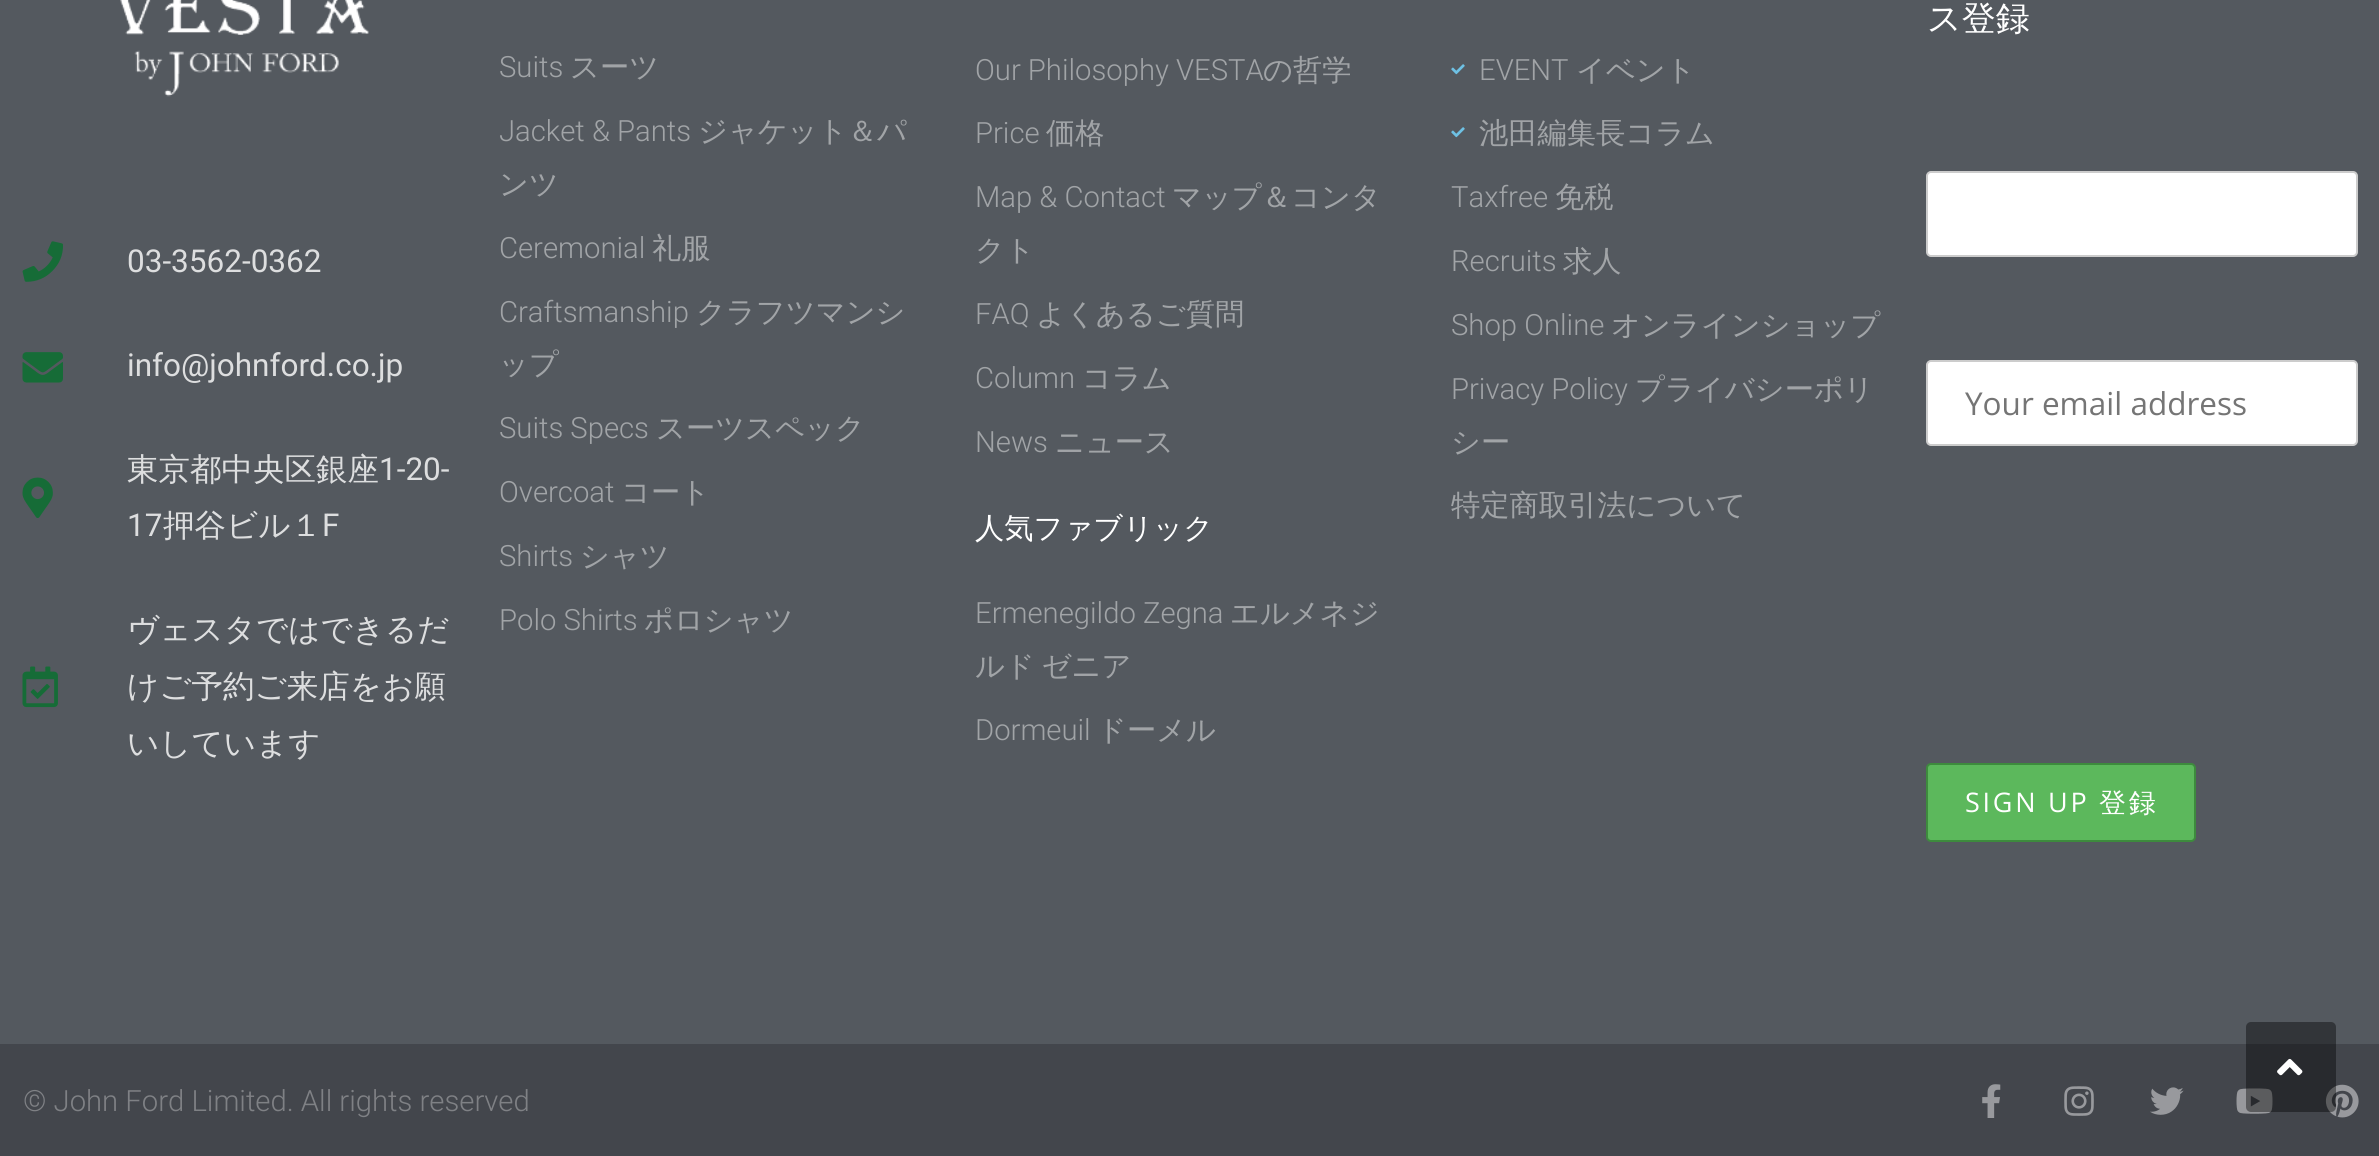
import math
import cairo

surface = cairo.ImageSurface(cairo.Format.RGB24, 2379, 1156)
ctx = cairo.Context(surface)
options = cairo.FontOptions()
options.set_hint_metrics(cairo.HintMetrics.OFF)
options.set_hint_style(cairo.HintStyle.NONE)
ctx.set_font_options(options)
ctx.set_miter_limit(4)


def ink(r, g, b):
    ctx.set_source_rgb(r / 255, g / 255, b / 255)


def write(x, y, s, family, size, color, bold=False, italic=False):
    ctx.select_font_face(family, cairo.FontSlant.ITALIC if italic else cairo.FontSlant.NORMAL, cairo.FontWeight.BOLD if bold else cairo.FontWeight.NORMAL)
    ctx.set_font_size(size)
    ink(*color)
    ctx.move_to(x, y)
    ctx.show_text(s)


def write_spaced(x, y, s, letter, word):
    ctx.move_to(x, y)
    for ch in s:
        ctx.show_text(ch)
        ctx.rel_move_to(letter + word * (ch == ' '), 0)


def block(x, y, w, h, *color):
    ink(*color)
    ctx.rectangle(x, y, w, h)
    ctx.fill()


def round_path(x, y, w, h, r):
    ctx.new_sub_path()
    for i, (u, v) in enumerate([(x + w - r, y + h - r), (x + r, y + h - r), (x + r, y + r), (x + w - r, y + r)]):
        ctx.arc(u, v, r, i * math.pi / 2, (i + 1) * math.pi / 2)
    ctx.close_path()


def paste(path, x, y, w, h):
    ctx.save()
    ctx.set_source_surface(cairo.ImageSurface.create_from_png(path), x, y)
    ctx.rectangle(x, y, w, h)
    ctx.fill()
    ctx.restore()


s1 = dict(family="Roboto", size=31.5, color=(221, 222, 223))
s2 = dict(family="WenQuanYi Zen Hei Medium", size=31.5, color=(221, 222, 223))
s3 = dict(family="Roboto Light", size=29.25, color=(161, 164, 167))
s4 = dict(family="WenQuanYi Zen Hei Medium", size=29.25, color=(161, 164, 167))
s5 = dict(family="WenQuanYi Zen Hei Medium", size=29.25, color=(255, 255, 255))
s6 = dict(family="WenQuanYi Zen Hei Medium", size=34, color=(255, 255, 255))
s7 = dict(family="Open Sans", size=31.5, color=(117, 117, 117))
s8 = dict(family="Roboto Light", size=29.25, color=(127, 129, 133))

ink(84, 89, 95)
ctx.paint()
paste("pic1.png", 120, 0, 249, 97)
paste("pic2.png", 22, 241, 41, 41)
write(127, 272, "03-3562-0362", **s1)
paste("pic3.png", 22, 352, 41, 31)
write(127, 376, "info@johnford.co.jp", **s1)
paste("pic4.png", 22, 477, 31, 41)
write(127, 480, "東京都中央区銀座", **s2)
write(379, 480, "1-20-", **s1)
write(127, 536, "17", **s1)
write(163, 536, "押谷ビル１", **s2)
write(322, 536, "F", **s1)
paste("pic5.png", 22, 666, 36, 42)
write(127, 640, "ヴェスタではできるだ", **s2)
write(127, 697, "けご予約ご来店をお願", **s2)
write(127, 754, "いしています", **s2)
write(499, 77, "Suits", **s3)
write(570, 77, "スーツ", **s4)
write(499, 141, "Jacket & Pants", **s3)
write(698, 141, "ジャケット＆パ", **s4)
write(499, 194, "ンツ", **s4)
write(499, 258, "Ceremonial", **s3)
write(652, 258, "礼服", **s4)
write(499, 322, "Craftsmanship", **s3)
write(696, 322, "クラフツマンシ", **s4)
write(499, 374, "ップ", **s4)
write(499, 438, "Suits Specs", **s3)
write(656, 438, "スーツスペック", **s4)
write(499, 502, "Overcoat", **s3)
write(621, 502, "コート", **s4)
write(499, 566, "Shirts", **s3)
write(580, 566, "シャツ", **s4)
write(499, 630, "Polo Shirts", **s3)
write(644, 630, "ポロシャツ", **s4)
write(975, 80, "Our Philosophy VESTA", **s3)
write(1263, 80, "の哲学", **s4)
write(975, 143, "Price", **s3)
write(1046, 143, "価格", **s4)
write(975, 207, "Map & Contact", **s3)
write(1172, 207, "マップ＆コンタ", **s4)
write(975, 260, "クト", **s4)
write(975, 324, "FAQ", **s3)
write(1036, 324, "よくあるご質問", **s4)
write(975, 388, "Column", **s3)
write(1082, 388, "コラム", **s4)
write(975, 452, "News", **s3)
write(1055, 452, "ニュース", **s4)
write(975, 538, "人気ファブリック", **s5)
write(975, 623, "Ermenegildo Zegna", **s3)
write(1230, 623, "エルメネジ", **s4)
write_spaced(975, 676, "ルド ゼニア", 0, -2)
write(975, 740, "Dormeuil", **s3)
write(1097, 740, "ドーメル", **s4)
paste("pic6.png", 1451, 64, 14, 11)
write(1479, 80, "EVENT", **s3)
write(1576, 80, "イベント", **s4)
paste("pic6.png", 1451, 127, 14, 11)
write(1479, 143, "池田編集長コラム", **s4)
write(1451, 207, "Taxfree", **s3)
write(1555, 207, "免税", **s4)
write(1451, 271, "Recruits", **s3)
write(1563, 271, "求人", **s4)
write(1451, 335, "Shop Online", **s3)
write(1611, 335, "オンラインショップ", **s4)
write(1451, 399, "Privacy Policy", **s3)
write(1635, 399, "プライバシーポリ", **s4)
write(1451, 452, "シー", **s4)
write(1451, 515, "特定商取引法について", **s4)
write(1927, 30, "ス登録", **s6)
round_path(1927, 172, 430, 84, 4)
ctx.fill_preserve()
ink(204, 204, 204)
ctx.stroke()
ink(255, 255, 255)
round_path(1927, 361, 430, 84, 4)
ctx.fill_preserve()
ink(204, 204, 204)
ctx.stroke()
write(1965, 415, "Your email address", **s7)
ink(92, 184, 92)
round_path(1927, 764, 268, 77, 4)
ctx.fill_preserve()
ink(61, 139, 61)
ctx.stroke()
ctx.set_font_size(27)
ink(255, 255, 255)
write_spaced(1965, 812, "SIGN UP", 2.75, 0)
ctx.select_font_face("WenQuanYi Zen Hei Medium")
write_spaced(2099, 812, "登録", 2.75, 0)
block(0, 1044, 2379, 112, 67, 70, 76)
write(23, 1111, "© John Ford Limited. All rights reserved", **s8)
paste("pic7.png", 1982, 1084, 19, 34)
paste("pic8.png", 2064, 1086, 30, 30)
paste("pic9.png", 2150, 1087, 34, 28)
paste("pic10.png", 2236, 1088, 37, 26)
paste("pic11.png", 2325, 1084, 34, 34)
ctx.set_source_rgba(0, 0, 0, 0.4)
round_path(2246, 1022, 90, 90, 5)
ctx.fill()
paste("pic12.png", 2277, 1058, 26, 18)
surface.write_to_png("screenshot.png")
